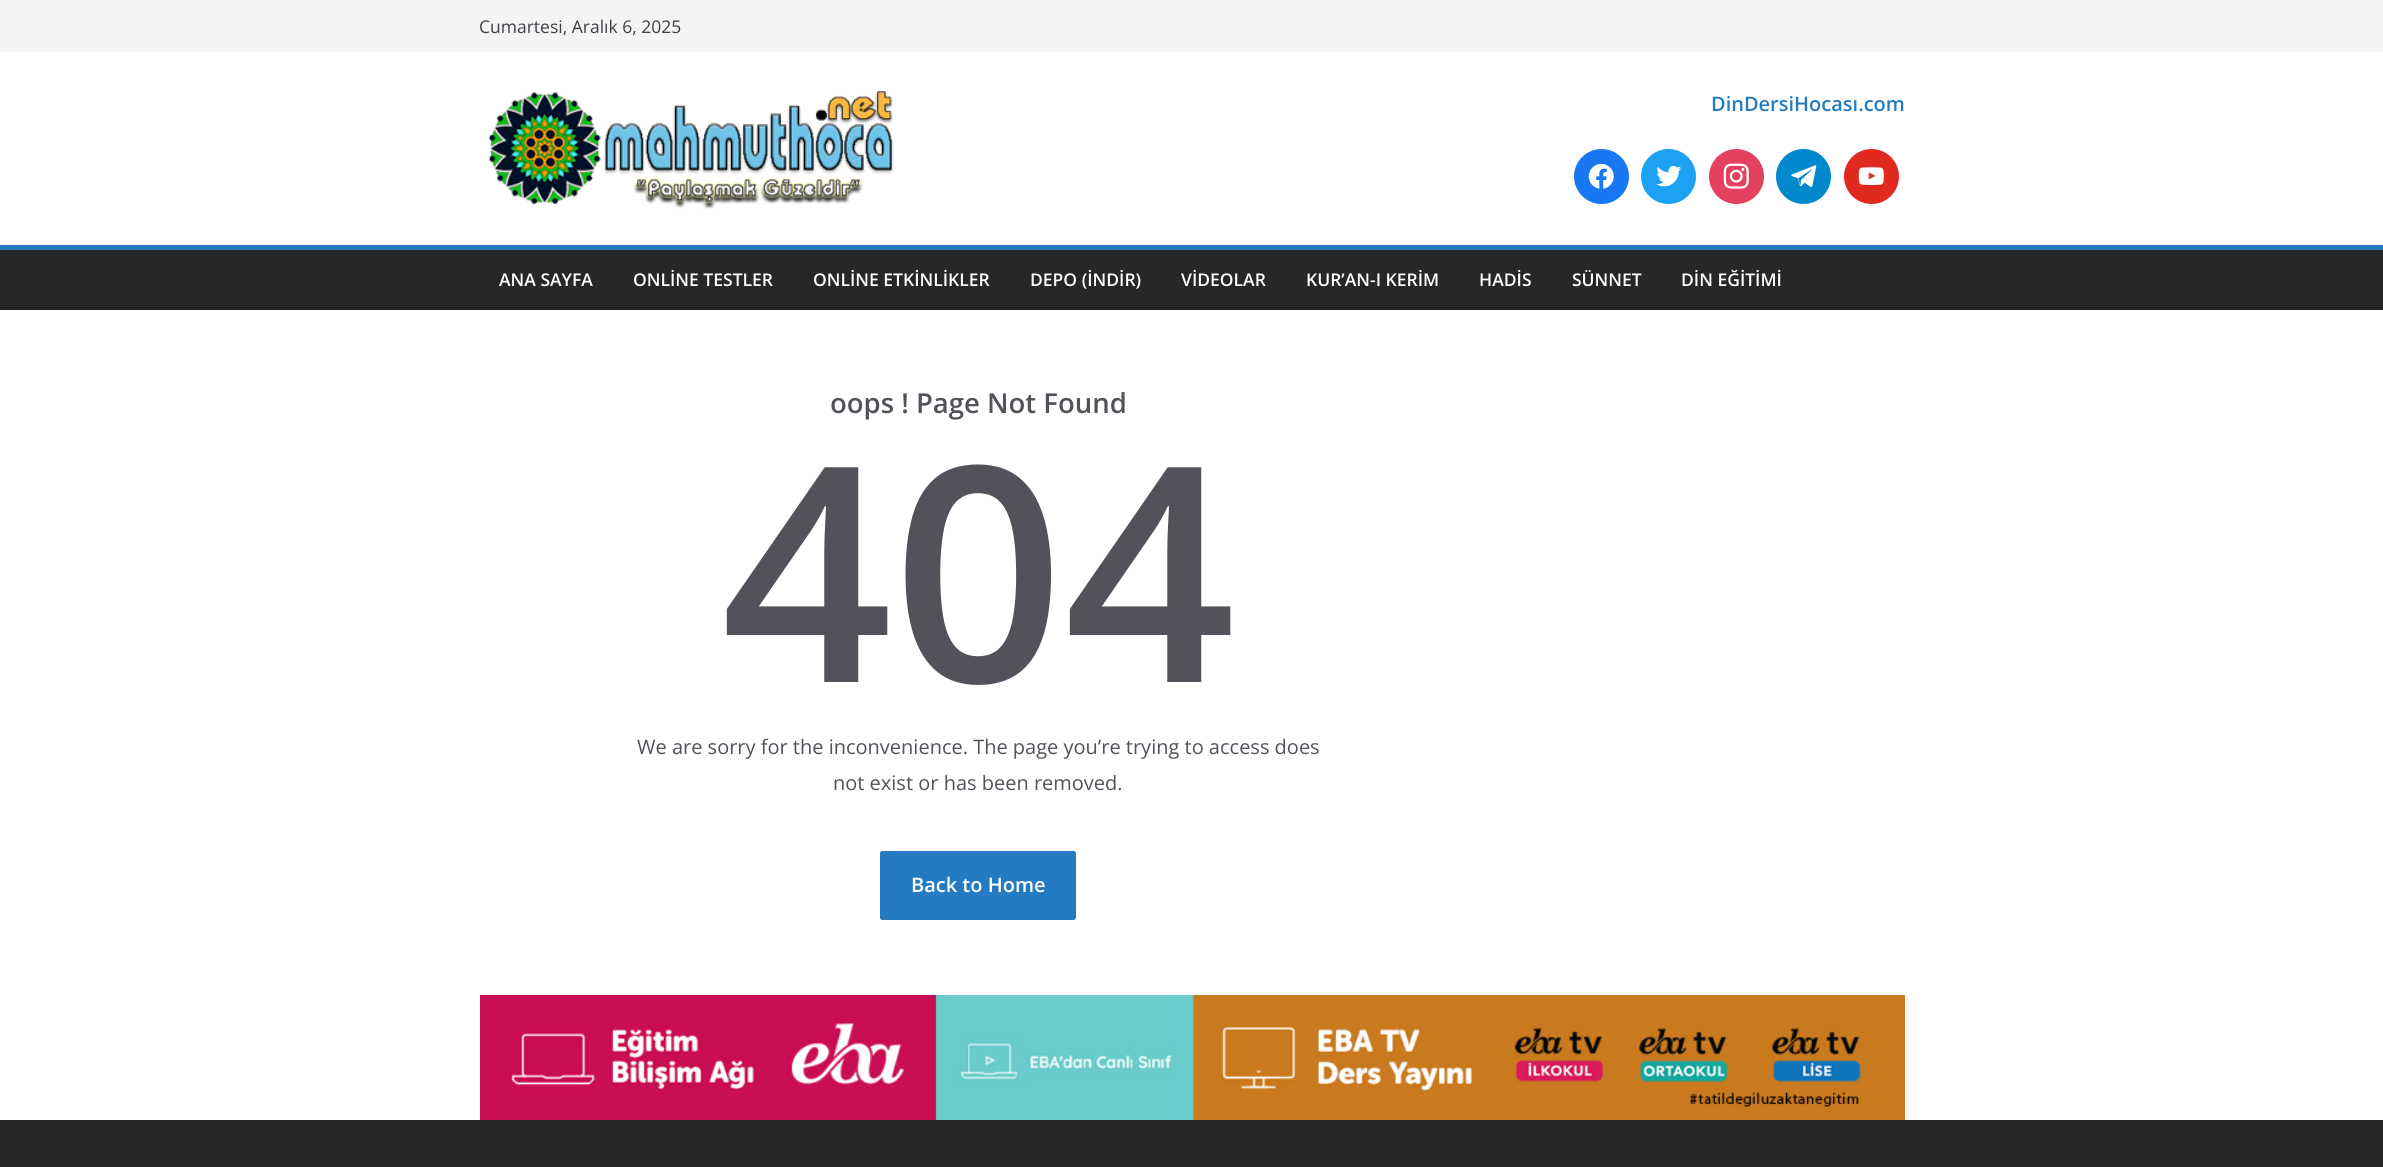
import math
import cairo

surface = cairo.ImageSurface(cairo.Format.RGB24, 2383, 1167)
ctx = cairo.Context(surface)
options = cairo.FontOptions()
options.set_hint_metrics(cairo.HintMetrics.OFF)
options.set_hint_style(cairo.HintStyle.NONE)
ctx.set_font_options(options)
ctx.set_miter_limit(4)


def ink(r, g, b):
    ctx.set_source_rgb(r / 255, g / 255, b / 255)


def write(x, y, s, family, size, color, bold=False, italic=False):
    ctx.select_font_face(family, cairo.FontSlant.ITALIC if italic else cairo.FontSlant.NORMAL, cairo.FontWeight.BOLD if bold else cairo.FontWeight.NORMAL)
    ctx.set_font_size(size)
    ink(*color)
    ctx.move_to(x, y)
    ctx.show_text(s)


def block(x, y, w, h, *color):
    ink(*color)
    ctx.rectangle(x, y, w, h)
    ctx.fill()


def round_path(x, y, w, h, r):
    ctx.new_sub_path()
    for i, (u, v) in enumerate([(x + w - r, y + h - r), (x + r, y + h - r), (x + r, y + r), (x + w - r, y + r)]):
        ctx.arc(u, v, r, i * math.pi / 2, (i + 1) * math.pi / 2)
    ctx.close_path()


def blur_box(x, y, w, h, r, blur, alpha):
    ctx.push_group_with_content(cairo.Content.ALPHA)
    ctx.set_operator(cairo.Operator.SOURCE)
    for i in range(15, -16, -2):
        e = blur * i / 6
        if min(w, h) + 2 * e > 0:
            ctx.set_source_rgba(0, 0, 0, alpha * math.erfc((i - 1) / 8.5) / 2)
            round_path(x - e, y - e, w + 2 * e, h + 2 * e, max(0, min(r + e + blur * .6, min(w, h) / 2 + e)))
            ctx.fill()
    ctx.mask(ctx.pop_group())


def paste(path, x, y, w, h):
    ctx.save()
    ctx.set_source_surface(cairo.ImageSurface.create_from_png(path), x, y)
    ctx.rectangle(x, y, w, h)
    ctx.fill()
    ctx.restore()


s1 = dict(family="Open Sans", size=17.5, color=(63, 63, 70))
s2 = dict(family="Open Sans SemiBold", size=20, color=(37, 123, 193))
s3 = dict(family="Open Sans SemiBold", size=17.5, color=(255, 255, 255))
s4 = dict(family="Open Sans SemiBold", size=27.5, color=(82, 82, 91))
s5 = dict(family="Open Sans SemiBold", size=300, color=(82, 82, 91))
s6 = dict(family="Open Sans", size=20, color=(82, 82, 91))
s7 = dict(family="Open Sans SemiBold", size=20, color=(255, 255, 255))

ink(255, 255, 255)
ctx.paint()
ink(0, 0, 0)
blur_box(0, 0, 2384, 51, 0, 1, 0.1)
block(0, 0, 2383, 51, 244, 244, 245)
write(479, 33, "Cumartesi, Aralık 6, 2025", **s1)
paste("pic1.png", 488, 91, 406, 118)
write(1711, 111, "DinDersiHocası.com", **s2)
ink(24, 119, 242)
ctx.new_path()
ctx.arc(1601.5, 176.5, 27.5, 0, 2 * math.pi)
ctx.fill()
paste("pic2.png", 1588, 163, 26, 26)
ink(29, 161, 242)
ctx.arc(1668.5, 176.5, 27.5, 0, 2 * math.pi)
ctx.fill()
paste("pic3.png", 1656, 166, 26, 21)
ink(228, 64, 95)
ctx.arc(1736.5, 176.5, 27.5, 0, 2 * math.pi)
ctx.fill()
paste("pic4.png", 1723, 163, 26, 26)
ink(0, 136, 204)
ctx.arc(1803.5, 176.5, 27.5, 0, 2 * math.pi)
ctx.fill()
paste("pic5.png", 1791, 165, 26, 22)
ink(224, 42, 32)
ctx.arc(1871.5, 176.5, 27.5, 0, 2 * math.pi)
ctx.fill()
paste("pic6.png", 1858, 167, 26, 18)
block(0, 250, 2383, 60, 39, 39, 42)
block(0, 245, 2383, 5, 37, 123, 193)
write(499, 286, "ANA SAYFA", **s3)
write(633, 286, "ONLİNE TESTLER", **s3)
write(813, 286, "ONLİNE ETKİNLİKLER", **s3)
write(1030, 286, "DEPO (İNDİR)", **s3)
write(1181, 286, "VİDEOLAR", **s3)
write(1306, 286, "KUR’AN-I KERİM", **s3)
write(1479, 286, "HADİS", **s3)
write(1572, 286, "SÜNNET", **s3)
write(1681, 286, "DİN EĞİTİMİ", **s3)
write(830, 413, "oops ! Page Not Found", **s4)
write(721, 682, "404", **s5)
write(637, 754, "We are sorry for the inconvenience. The page you’re trying to access does", **s6)
write(833, 790, "not exist or has been removed.", **s6)
ink(37, 123, 193)
round_path(880.5, 851.5, 195, 68, 2)
ctx.fill_preserve()
ctx.set_line_width(1)
ctx.stroke()
write(911, 892, "Back to Home", **s7)
paste("pic7.png", 480, 995, 1425, 125)
block(0, 1120, 2383, 47, 39, 39, 42)
surface.write_to_png("screenshot.png")
